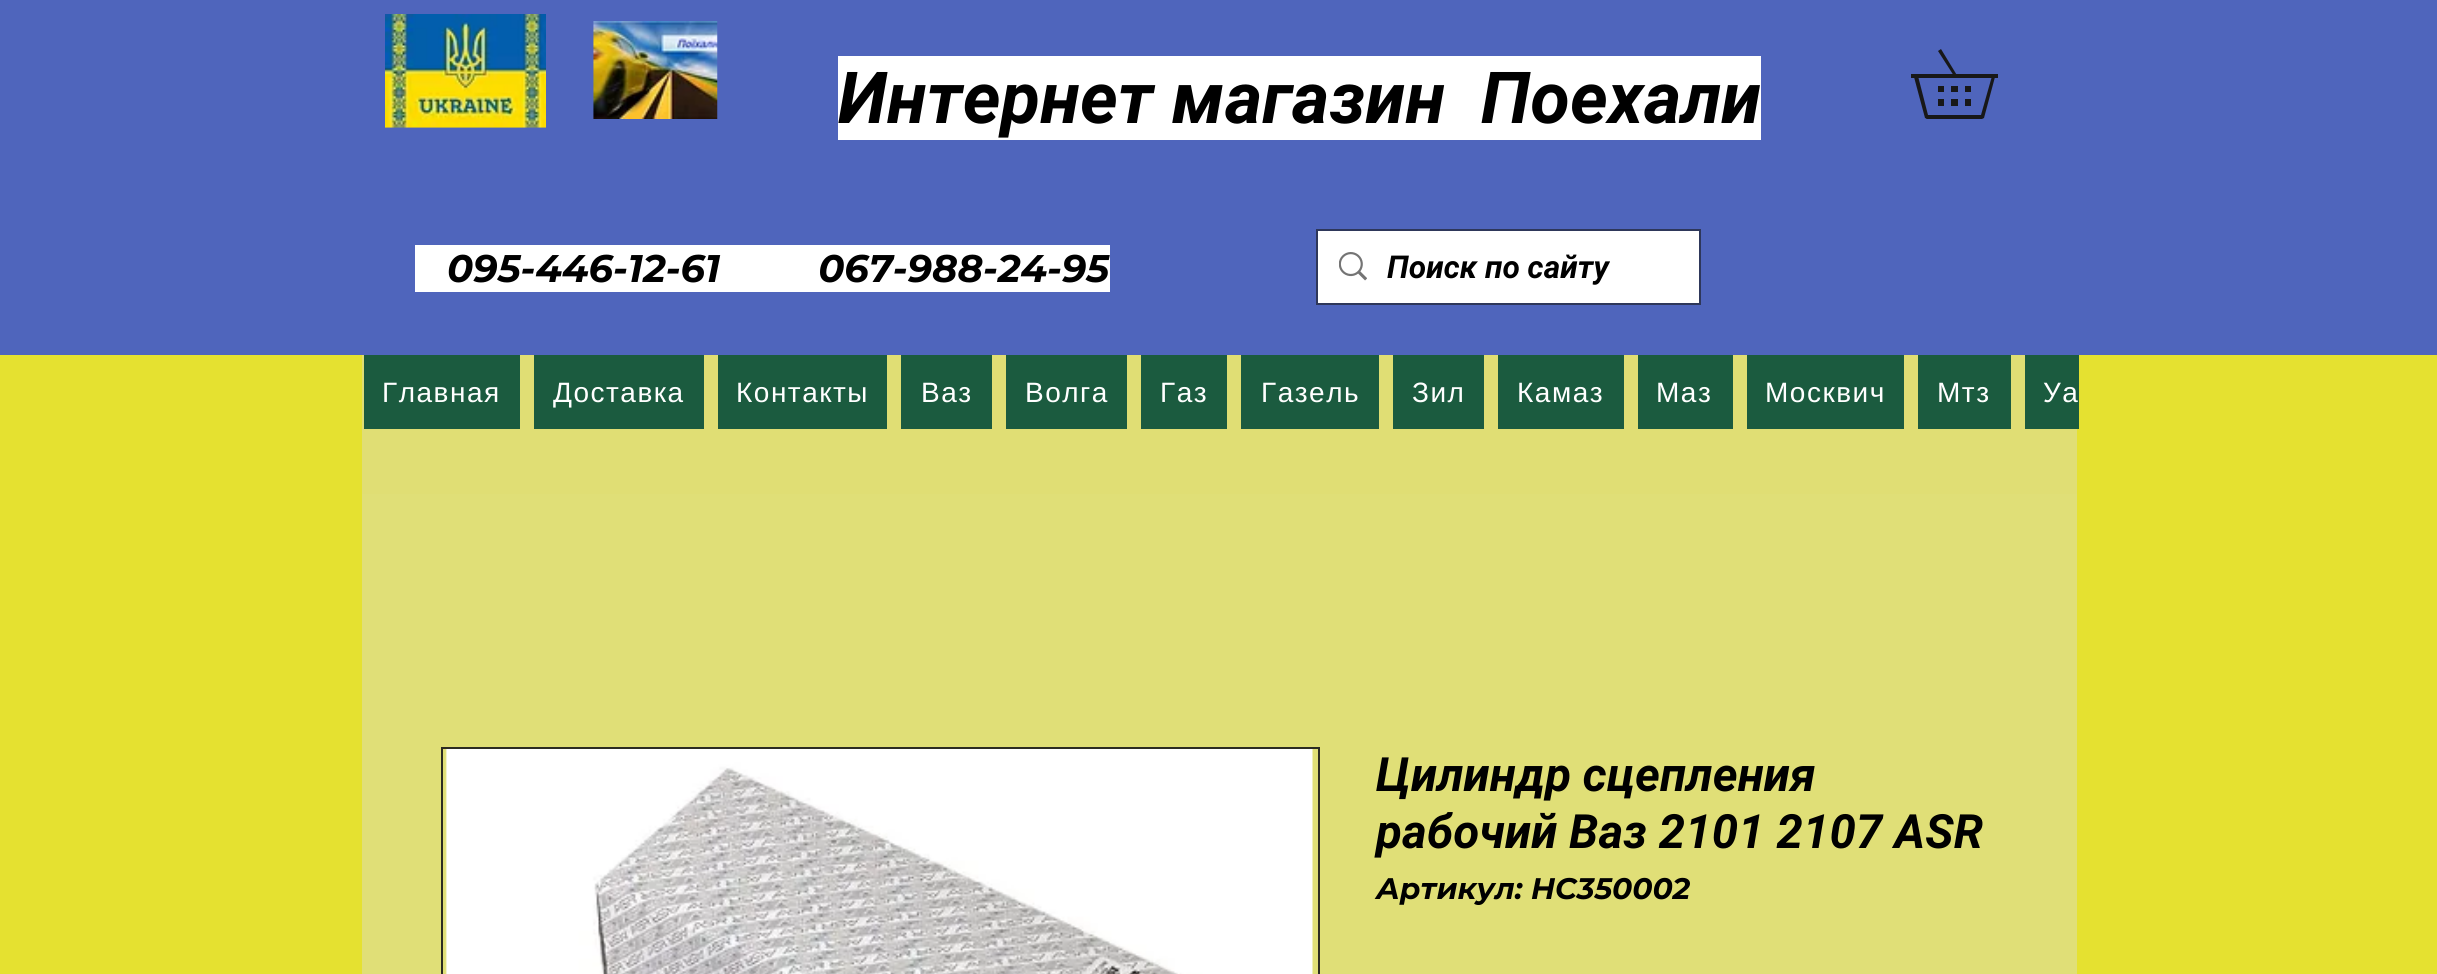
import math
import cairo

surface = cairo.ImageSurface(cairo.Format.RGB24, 2437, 974)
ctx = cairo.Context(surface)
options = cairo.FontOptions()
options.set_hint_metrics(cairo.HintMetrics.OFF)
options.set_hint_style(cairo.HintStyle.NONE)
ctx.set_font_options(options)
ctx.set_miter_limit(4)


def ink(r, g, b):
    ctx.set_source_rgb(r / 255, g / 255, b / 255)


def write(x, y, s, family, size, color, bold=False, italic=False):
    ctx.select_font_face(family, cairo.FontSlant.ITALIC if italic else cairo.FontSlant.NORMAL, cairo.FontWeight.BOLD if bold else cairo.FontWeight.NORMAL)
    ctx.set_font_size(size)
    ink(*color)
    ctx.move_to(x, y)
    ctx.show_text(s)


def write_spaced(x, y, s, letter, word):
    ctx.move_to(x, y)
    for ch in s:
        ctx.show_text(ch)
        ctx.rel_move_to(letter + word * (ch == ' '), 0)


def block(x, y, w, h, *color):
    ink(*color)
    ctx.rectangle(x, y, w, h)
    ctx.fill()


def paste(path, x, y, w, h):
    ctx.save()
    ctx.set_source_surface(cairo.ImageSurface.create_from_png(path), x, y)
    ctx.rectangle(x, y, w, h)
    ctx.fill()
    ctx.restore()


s1 = dict(family="Roboto", size=71.75, color=(0, 0, 0), bold=True, italic=True)
s2 = dict(family="Montserrat", size=38.5, color=(0, 0, 0), bold=True, italic=True)
s3 = dict(family="Roboto", size=31.5, color=(0, 0, 0), bold=True, italic=True)
s4 = dict(family="Roboto", size=47.25, color=(0, 0, 0), bold=True, italic=True)
s5 = dict(family="Montserrat", size=29.75, color=(0, 0, 0), bold=True, italic=True)

ink(229, 225, 48)
ctx.paint()
block(0, 0, 2437, 355, 79, 101, 188)
paste("pic1.png", 385, 14, 161, 114)
paste("pic2.png", 593, 21, 125, 98)
block(838, 56, 923, 84, 255, 255, 255)
write(838, 123, "Интернет магазин  Поехали", **s1)
block(1911, 74, 87, 4, 24, 24, 24)
ctx.new_path()
ctx.move_to(1982, 119)
ctx.line_to(1927, 119)
ctx.curve_to(1926, 119, 1926, 118, 1925, 118)
ctx.line_to(1914, 77)
ctx.line_to(1918, 76)
ctx.line_to(1928, 115)
ctx.line_to(1981, 115)
ctx.line_to(1992, 76)
ctx.line_to(1995, 77)
ctx.line_to(1984, 118)
ctx.close_path()
ctx.fill()
ctx.new_path()
ctx.move_to(1954, 76)
ctx.line_to(1938, 51)
ctx.line_to(1941, 49)
ctx.line_to(1956.5, 74.5)
ctx.close_path()
ctx.fill()
block(1951, 86, 7, 6, 24, 24, 24)
block(1965, 86, 6, 6, 24, 24, 24)
block(1938, 86, 6, 6, 24, 24, 24)
block(1951, 99, 7, 7, 24, 24, 24)
block(1965, 99, 6, 7, 24, 24, 24)
block(1938, 99, 6, 7, 24, 24, 24)
block(415, 245, 695, 47, 255, 255, 255)
write(447, 282, "095-446-12-61         067-988-24-95", **s2)
ctx.rectangle(1317, 230, 383, 74)
ink(46, 55, 90)
ctx.stroke()
block(1318, 231, 381, 72, 255, 255, 255)
paste("pic3.png", 1339, 252, 28, 29)
write(1387, 278, "Поиск по сайту", **s3)
block(362, 355, 1715, 139, 224, 222, 116)
block(364, 355, 156, 74, 27, 91, 63)
ctx.select_font_face("Liberation Sans")
ctx.set_font_size(28)
ink(255, 255, 255)
write_spaced(382, 402, "Главная", 1.5, 0)
block(534, 355, 170, 74, 27, 91, 63)
ink(255, 255, 255)
write_spaced(553, 402, "Доставка", 1.5, 0)
block(718, 355, 169, 74, 27, 91, 63)
ink(255, 255, 255)
write_spaced(736, 402, "Контакты", 1.5, 0)
block(901, 355, 91, 74, 27, 91, 63)
ink(255, 255, 255)
write_spaced(921, 402, "Ваз", 1.5, 0)
block(1006, 355, 121, 74, 27, 91, 63)
ink(255, 255, 255)
write_spaced(1025, 402, "Волга", 1.5, 0)
block(1141, 355, 86, 74, 27, 91, 63)
ink(255, 255, 255)
write_spaced(1160, 402, "Газ", 1.5, 0)
block(1241, 355, 138, 74, 27, 91, 63)
ink(255, 255, 255)
write_spaced(1261, 402, "Газель", 1.5, 0)
block(1393, 355, 91, 74, 27, 91, 63)
ink(255, 255, 255)
write_spaced(1412, 402, "Зил", 1.5, 0)
block(1498, 355, 126, 74, 27, 91, 63)
ink(255, 255, 255)
write_spaced(1517, 402, "Камаз", 1.5, 0)
block(1638, 355, 95, 74, 27, 91, 63)
ink(255, 255, 255)
write_spaced(1656, 402, "Маз", 1.5, 0)
block(1747, 355, 157, 74, 27, 91, 63)
ink(255, 255, 255)
write_spaced(1765, 402, "Москвич", 1.5, 0)
block(1918, 355, 93, 74, 27, 91, 63)
ink(255, 255, 255)
write_spaced(1937, 402, "Мтз", 1.5, 0)
block(2025, 355, 54, 74, 27, 91, 63)
ink(255, 255, 255)
write_spaced(2043, 402, "Уа", 1.5, 0)
block(362, 494, 1715, 480, 224, 223, 119)
ctx.rectangle(442, 748, 877, 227)
ink(44, 44, 34)
ctx.stroke()
paste("pic4.png", 445, 749, 868, 225)
write(1376, 791, "Цилиндр сцепления", **s4)
write(1376, 848, "рабочий Ваз 2101 2107 ASR", **s4)
write(1376, 899, "Артикул: HC350002", **s5)
surface.write_to_png("screenshot.png")
